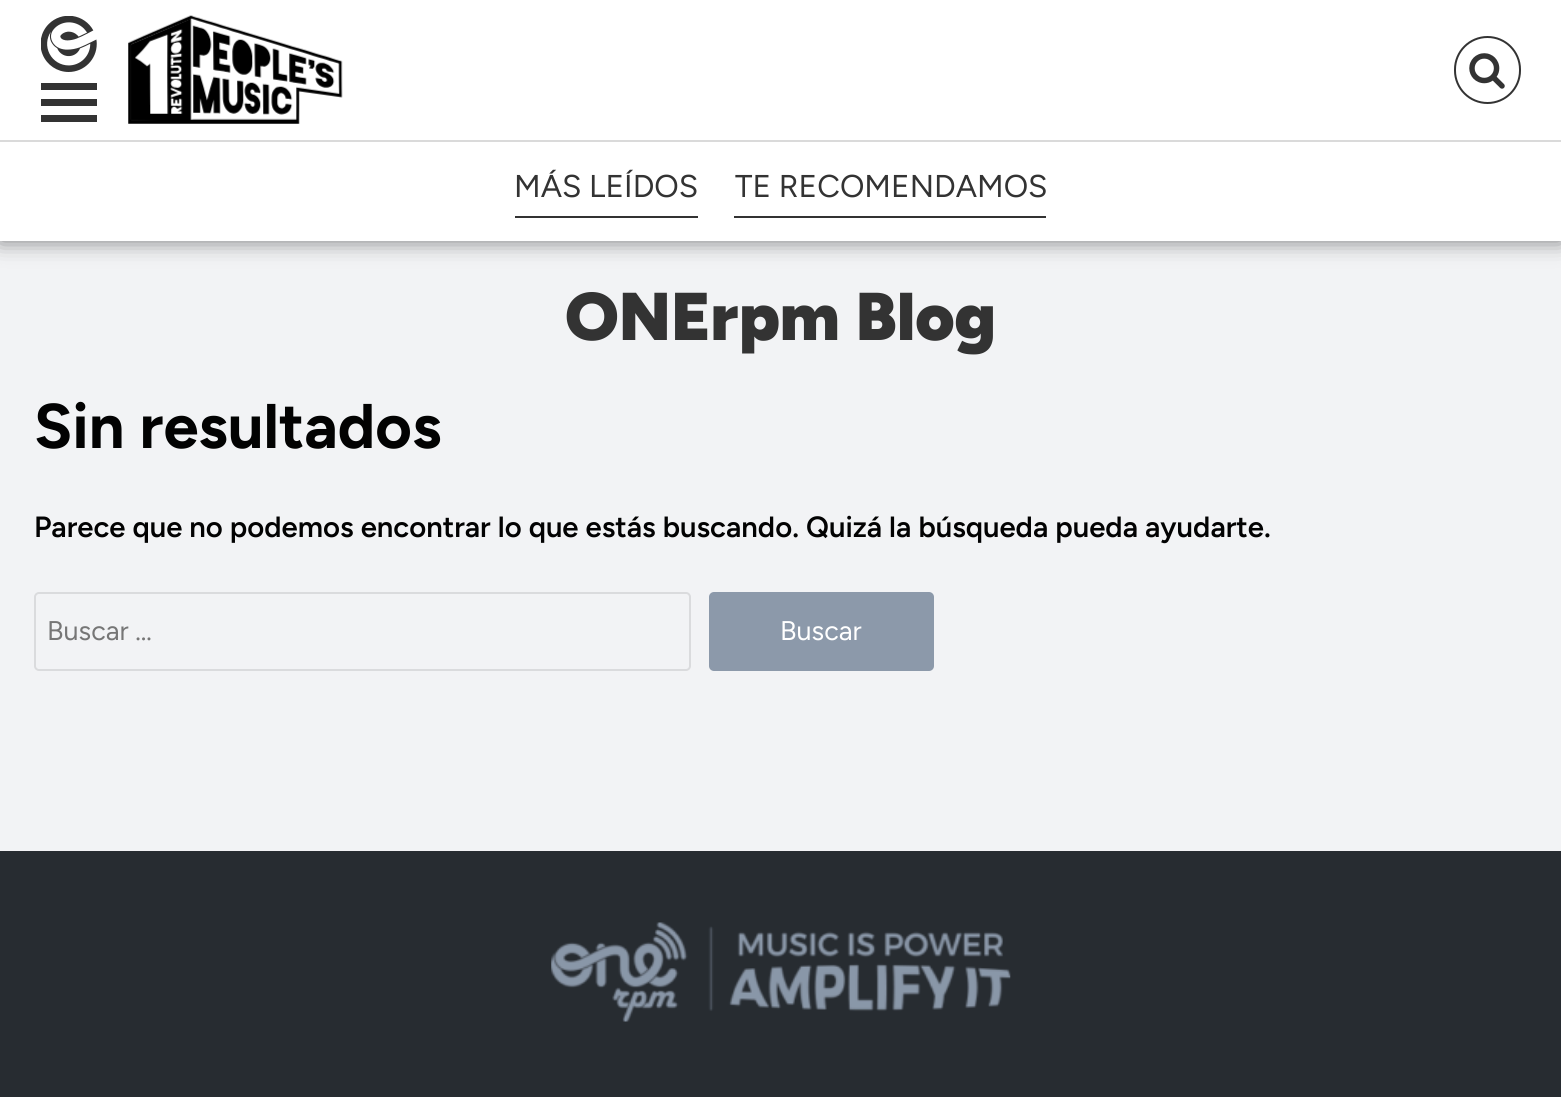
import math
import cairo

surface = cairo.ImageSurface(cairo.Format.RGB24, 1561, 1097)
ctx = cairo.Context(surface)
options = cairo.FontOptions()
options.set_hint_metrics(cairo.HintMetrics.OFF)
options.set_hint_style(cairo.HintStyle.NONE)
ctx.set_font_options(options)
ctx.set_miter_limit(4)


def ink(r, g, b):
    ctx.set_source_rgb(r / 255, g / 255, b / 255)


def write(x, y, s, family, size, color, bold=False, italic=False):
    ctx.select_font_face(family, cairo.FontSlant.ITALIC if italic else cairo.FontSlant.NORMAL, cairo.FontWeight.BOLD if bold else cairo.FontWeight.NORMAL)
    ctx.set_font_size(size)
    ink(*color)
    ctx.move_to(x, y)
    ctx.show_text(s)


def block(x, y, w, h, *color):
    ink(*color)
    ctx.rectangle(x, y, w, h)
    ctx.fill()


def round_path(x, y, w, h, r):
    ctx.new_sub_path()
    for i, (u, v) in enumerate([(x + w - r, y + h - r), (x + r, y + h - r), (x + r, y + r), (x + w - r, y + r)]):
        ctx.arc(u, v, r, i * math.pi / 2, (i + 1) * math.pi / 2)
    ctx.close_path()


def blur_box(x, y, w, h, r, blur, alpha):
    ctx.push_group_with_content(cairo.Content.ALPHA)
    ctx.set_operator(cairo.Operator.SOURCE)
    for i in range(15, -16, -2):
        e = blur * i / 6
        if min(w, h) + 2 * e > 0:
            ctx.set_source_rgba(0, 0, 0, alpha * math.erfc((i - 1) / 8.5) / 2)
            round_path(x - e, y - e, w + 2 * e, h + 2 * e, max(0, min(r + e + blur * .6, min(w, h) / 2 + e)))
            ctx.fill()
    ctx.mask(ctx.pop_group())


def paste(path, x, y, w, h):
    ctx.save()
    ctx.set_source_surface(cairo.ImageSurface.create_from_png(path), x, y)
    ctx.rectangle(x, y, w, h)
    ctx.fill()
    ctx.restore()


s1 = dict(family="Figtree", size=31.5, color=(51, 51, 51))
s2 = dict(family="Figtree Black", size=67.5, color=(51, 51, 51))
s3 = dict(family="Figtree", size=63, color=(2, 2, 2), bold=True)
s4 = dict(family="Figtree SemiBold", size=29.25, color=(2, 2, 2))
s5 = dict(family="Figtree", size=27, color=(118, 118, 118))
s6 = dict(family="Figtree", size=27, color=(255, 255, 255))

ink(242, 243, 245)
ctx.paint()
ctx.save()
ctx.set_fill_rule(cairo.FillRule.EVEN_ODD)
ctx.new_path()
ctx.move_to(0, 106)
ctx.line_to(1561, 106)
ctx.line_to(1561, 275)
ctx.line_to(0, 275)
ctx.close_path()
ctx.move_to(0, 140)
ctx.line_to(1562, 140)
ctx.line_to(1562, 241)
ctx.line_to(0, 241)
ctx.close_path()
ctx.clip()
ink(0, 0, 0)
blur_box(0, 140, 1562, 101, 0, 11, 0.5)
ctx.restore()
block(0, 0, 1561, 140, 255, 255, 255)
paste("pic1.png", 41, 16, 56, 56)
block(41, 83, 56, 7, 51, 51, 51)
block(41, 99, 56, 7, 51, 51, 51)
block(41, 115, 56, 7, 51, 51, 51)
paste("pic2.png", 128, 15, 215, 109)
round_path(1455, 37, 65, 66, 32.5)
ctx.stroke()
paste("pic3.png", 1469, 53, 36, 36)
ctx.set_source_rgba(1, 1, 1, 0.97)
ctx.rectangle(0, 142, 1561, 99)
ctx.fill()
block(0, 140, 1561, 2, 218, 218, 218)
write(514, 197, "MÁS LEÍDOS", **s1)
block(515, 216, 183, 2, 51, 51, 51)
write(735, 197, "TE RECOMENDAMOS", **s1)
block(734, 216, 312, 2, 51, 51, 51)
write(565, 340, "ONErpm Blog", **s2)
write(34, 448, "Sin resultados", **s3)
write(34, 537, "Parece que no podemos encontrar lo que estás buscando. Quizá la búsqueda pueda ayudarte.", **s4)
round_path(35, 593, 655, 77, 4)
ink(218, 219, 221)
ctx.stroke()
write(47, 640, "Buscar …", **s5)
ink(140, 153, 170)
round_path(709, 592, 225, 79, 5)
ctx.fill()
write(780, 640, "Buscar", **s6)
block(0, 851, 1561, 246, 39, 44, 49)
paste("pic4.png", 551, 922, 460, 100)
surface.write_to_png("screenshot.png")
